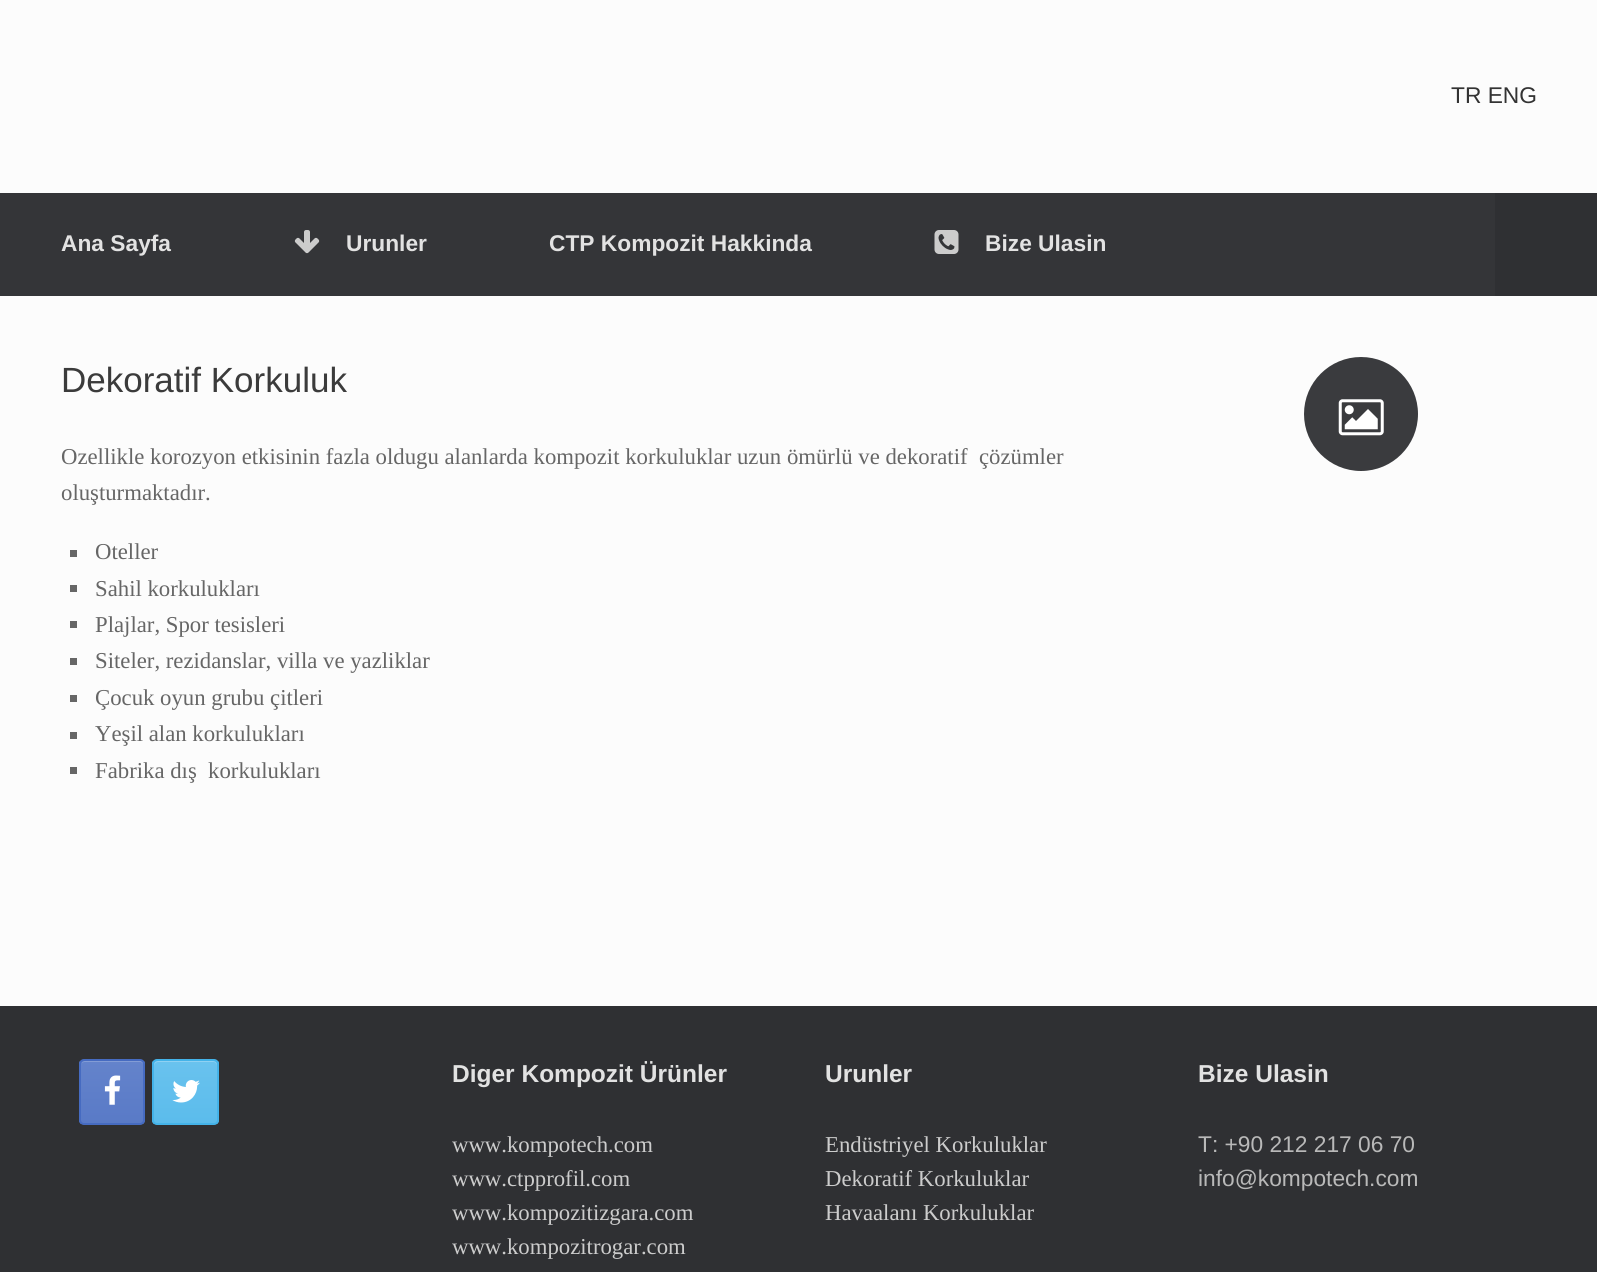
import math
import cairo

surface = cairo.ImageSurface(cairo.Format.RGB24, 1597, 1272)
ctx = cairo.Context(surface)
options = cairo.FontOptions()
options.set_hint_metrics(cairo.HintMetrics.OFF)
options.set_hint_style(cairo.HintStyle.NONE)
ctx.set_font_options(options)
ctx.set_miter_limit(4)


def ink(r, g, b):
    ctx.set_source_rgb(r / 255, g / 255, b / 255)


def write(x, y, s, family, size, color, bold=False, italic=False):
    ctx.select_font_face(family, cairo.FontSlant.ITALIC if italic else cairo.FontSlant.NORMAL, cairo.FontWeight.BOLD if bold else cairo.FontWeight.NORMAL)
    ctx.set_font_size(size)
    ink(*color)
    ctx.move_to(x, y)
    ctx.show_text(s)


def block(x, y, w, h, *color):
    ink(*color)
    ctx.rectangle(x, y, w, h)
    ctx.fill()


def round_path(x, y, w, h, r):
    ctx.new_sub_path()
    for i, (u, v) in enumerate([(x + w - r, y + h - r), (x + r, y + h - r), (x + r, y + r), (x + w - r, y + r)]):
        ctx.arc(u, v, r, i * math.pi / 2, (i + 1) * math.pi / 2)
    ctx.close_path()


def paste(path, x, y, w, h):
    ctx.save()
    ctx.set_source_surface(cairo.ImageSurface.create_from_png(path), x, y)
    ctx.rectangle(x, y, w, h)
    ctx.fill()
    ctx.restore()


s1 = dict(family="Liberation Sans", size=22.75, color=(51, 51, 51))
s2 = dict(family="Liberation Sans", size=22.75, color=(226, 226, 226), bold=True)
s3 = dict(family="Liberation Sans", size=35, color=(59, 59, 59))
s4 = dict(family="Liberation Serif", size=22.75, color=(102, 102, 102))
s5 = dict(family="Liberation Sans", size=24.5, color=(226, 226, 226), bold=True)
s6 = dict(family="Liberation Serif", size=22.75, color=(204, 204, 204))
s7 = dict(family="Liberation Sans", size=22.75, color=(185, 185, 185))

ink(47, 48, 51)
ctx.paint()
block(0, 0, 1597, 193, 252, 252, 252)
write(1451, 103, "TR ENG", **s1)
block(0, 193, 1495, 103, 52, 53, 56)
write(61, 251, "Ana Sayfa", **s2)
paste("pic1.png", 294, 230, 26, 24)
write(346, 251, "Urunler", **s2)
write(549, 251, "CTP Kompozit Hakkinda", **s2)
paste("pic2.png", 934, 230, 25, 24)
write(985, 251, "Bize Ulasin", **s2)
block(0, 296, 1597, 710, 252, 252, 252)
write(61, 392, "Dekoratif Korkuluk", **s3)
write(61, 464, "Ozellikle korozyon etkisinin fazla oldugu alanlarda kompozit korkuluklar uzun ömürlü ve dekoratif  çözümler", **s4)
write(61, 500, "oluşturmaktadır.", **s4)
block(70, 550, 7, 7, 102, 102, 102)
write(95, 559, "Oteller", **s4)
block(70, 585, 7, 7, 102, 102, 102)
write(95, 596, "Sahil korkulukları", **s4)
block(70, 621, 7, 7, 102, 102, 102)
write(95, 632, "Plajlar, Spor tesisleri", **s4)
block(70, 658, 7, 7, 102, 102, 102)
write(95, 668, "Siteler, rezidanslar, villa ve yazliklar", **s4)
block(70, 695, 7, 7, 102, 102, 102)
write(95, 705, "Çocuk oyun grubu çitleri", **s4)
block(70, 732, 7, 7, 102, 102, 102)
write(95, 741, "Yeşil alan korkulukları", **s4)
block(70, 767, 7, 7, 102, 102, 102)
write(95, 778, "Fabrika dış  korkulukları", **s4)
ink(58, 59, 62)
ctx.new_path()
ctx.arc(1361, 414, 57, 0, 2 * math.pi)
ctx.fill()
paste("pic3.png", 1338, 399, 46, 37)
ctx.save()
round_path(79, 1059, 66, 66, 5)
ctx.clip()
gradient = cairo.LinearGradient(81, 1124, 81, 1061)
gradient.add_color_stop_rgba(0, 0.349, 0.478, 0.78, 1)
gradient.add_color_stop_rgba(1, 0.392, 0.514, 0.796, 1)
ctx.set_source(gradient)
ctx.rectangle(79, 1061, 66, 63)
ctx.fill()
ctx.restore()
ink(131, 156, 213)
ctx.new_path()
ctx.move_to(84, 1062)
ctx.line_to(140, 1062)
ctx.curve_to(142, 1062, 144, 1064, 144, 1066)
ctx.line_to(144, 1065)
ctx.curve_to(144, 1063, 142, 1061, 140, 1061)
ctx.line_to(85, 1061)
ctx.curve_to(84, 1061, 82, 1062, 82, 1063)
ctx.close_path()
ctx.fill()
round_path(80, 1060, 64, 64, 4)
ink(70, 107, 193)
ctx.stroke()
paste("pic4.png", 104, 1075, 17, 30)
ctx.save()
round_path(152, 1059, 67, 66, 5)
ctx.clip()
gradient = cairo.LinearGradient(154, 1124, 154, 1061)
gradient.add_color_stop_rgba(0, 0.357, 0.737, 0.925, 1)
gradient.add_color_stop_rgba(1, 0.412, 0.761, 0.933, 1)
ctx.set_source(gradient)
ctx.rectangle(152, 1061, 67, 63)
ctx.fill()
ctx.restore()
ink(143, 209, 242)
ctx.new_path()
ctx.move_to(158, 1062)
ctx.line_to(214, 1062)
ctx.curve_to(215, 1062, 217, 1064, 217, 1066)
ctx.curve_to(217, 1059, 209, 1061, 204, 1061)
ctx.line_to(167, 1061)
ctx.curve_to(162, 1061, 154, 1059, 154, 1066)
ctx.curve_to(154, 1064, 156, 1062, 158, 1062)
ctx.close_path()
ctx.fill()
round_path(153, 1060, 65, 64, 4)
ink(68, 179, 233)
ctx.stroke()
paste("pic5.png", 172, 1080, 28, 23)
write(452, 1082, "Diger Kompozit Ürünler", **s5)
write(452, 1152, "www.kompotech.com", **s6)
write(452, 1186, "www.ctpprofil.com", **s6)
write(452, 1220, "www.kompozitizgara.com", **s6)
write(452, 1254, "www.kompozitrogar.com", **s6)
write(825, 1082, "Urunler", **s5)
write(825, 1152, "Endüstriyel Korkuluklar", **s6)
write(825, 1186, "Dekoratif Korkuluklar", **s6)
write(825, 1220, "Havaalanı Korkuluklar", **s6)
write(1198, 1082, "Bize Ulasin", **s5)
write(1198, 1152, "T: +90 212 217 06 70", **s7)
write(1198, 1186, "info@kompotech.com", **s7)
surface.write_to_png("screenshot.png")
